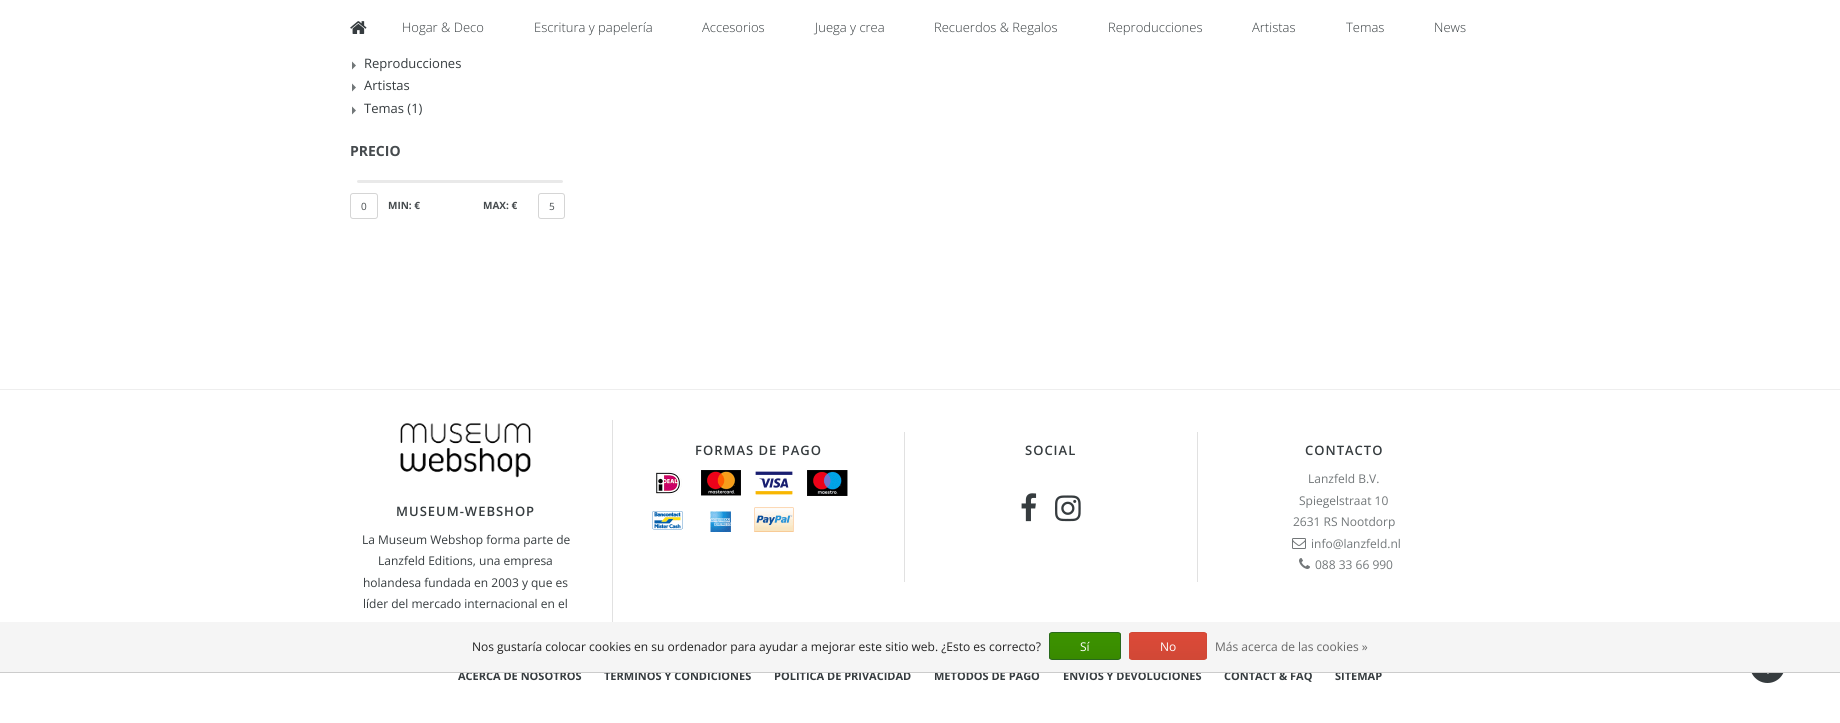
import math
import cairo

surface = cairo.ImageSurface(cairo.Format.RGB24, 1840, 723)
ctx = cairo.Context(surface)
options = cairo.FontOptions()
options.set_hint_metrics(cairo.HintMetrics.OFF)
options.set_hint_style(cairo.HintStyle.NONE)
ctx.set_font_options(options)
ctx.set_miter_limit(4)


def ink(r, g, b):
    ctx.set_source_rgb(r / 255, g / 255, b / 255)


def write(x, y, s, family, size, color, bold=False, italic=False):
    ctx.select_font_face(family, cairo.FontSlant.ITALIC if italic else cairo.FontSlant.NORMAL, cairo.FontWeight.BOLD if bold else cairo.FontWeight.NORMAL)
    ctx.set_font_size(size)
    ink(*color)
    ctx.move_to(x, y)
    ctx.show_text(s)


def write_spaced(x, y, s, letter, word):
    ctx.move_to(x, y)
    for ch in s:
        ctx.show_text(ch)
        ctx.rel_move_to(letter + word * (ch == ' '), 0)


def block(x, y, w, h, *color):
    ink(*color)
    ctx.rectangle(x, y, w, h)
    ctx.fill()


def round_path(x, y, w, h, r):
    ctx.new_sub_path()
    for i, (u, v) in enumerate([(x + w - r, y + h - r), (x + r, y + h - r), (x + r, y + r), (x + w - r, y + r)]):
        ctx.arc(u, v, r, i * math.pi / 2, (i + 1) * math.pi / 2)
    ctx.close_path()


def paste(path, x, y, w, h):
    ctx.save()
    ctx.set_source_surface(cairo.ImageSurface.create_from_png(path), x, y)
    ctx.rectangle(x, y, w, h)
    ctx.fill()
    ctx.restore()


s1 = dict(family="Open Sans Light", size=13, color=(54, 60, 63))
s2 = dict(family="Open Sans", size=13, color=(54, 60, 63))
s3 = dict(family="Open Sans", size=14, color=(70, 75, 78), bold=True)
s4 = dict(family="Open Sans", size=10, color=(70, 75, 78))
s5 = dict(family="Open Sans", size=10, color=(70, 75, 78), bold=True)
s6 = dict(family="Open Sans", size=12, color=(54, 60, 63))
s7 = dict(family="Open Sans", size=12, color=(114, 119, 121))
s8 = dict(family="Open Sans", size=11, color=(54, 60, 63), bold=True)
s9 = dict(family="Open Sans", size=12, color=(34, 34, 34))
s10 = dict(family="Open Sans", size=12, color=(255, 255, 255))
s11 = dict(family="Open Sans", size=12, color=(102, 102, 102))

ink(255, 255, 255)
ctx.paint()
paste("pic1.png", 350, 21, 17, 13)
write(402, 32, "Hogar & Deco", **s1)
write(534, 32, "Escritura y papelería", **s1)
write(702, 32, "Accesorios", **s1)
write(815, 32, "Juega y crea", **s1)
write(934, 32, "Recuerdos & Regalos", **s1)
write(1108, 32, "Reproducciones", **s1)
write(1252, 32, "Artistas", **s1)
write(1346, 32, "Temas", **s1)
write(1434, 32, "News", **s1)
paste("pic2.png", 352, 61, 4, 9)
write(364, 68, "Reproducciones", **s2)
paste("pic2.png", 352, 83, 4, 9)
write(364, 90, "Artistas", **s2)
paste("pic2.png", 352, 106, 4, 9)
write(364, 113, "Temas (1)", **s2)
write(350, 156, "PRECIO", **s3)
ink(233, 233, 233)
round_path(357, 180, 206, 3, 1.5)
ctx.fill()
round_path(350.5, 193.5, 27, 25, 2.5)
ink(213, 213, 213)
ctx.set_line_width(1)
ctx.stroke()
write(361, 210, "0", **s4)
write(388, 209, "MIN: €", **s5)
write(483, 209, "MAX: €", **s5)
round_path(538.5, 193.5, 26, 25, 2.5)
ink(213, 213, 213)
ctx.stroke()
write(549, 210, "5", **s4)
ink(54, 60, 63)
ctx.new_path()
ctx.arc(1767.5, 665.5, 17.5, 0, 2 * math.pi)
ctx.fill()
paste("pic3.png", 1767, 673, 2, 1)
block(0, 389, 1840, 1, 238, 238, 238)
block(612, 420, 1, 202, 225, 225, 225)
paste("pic4.png", 400, 423, 131, 55)
ctx.select_font_face("Open Sans SemiBold")
ctx.set_font_size(13)
ink(54, 60, 63)
write_spaced(396, 516, "MUSEUM-WEBSHOP", 1, 0)
write(362, 544, "La Museum Webshop forma parte de", **s6)
write(378, 565, "Lanzfeld Editions, una empresa", **s6)
write(363, 587, "holandesa fundada en 2003 y que es", **s6)
write(363, 608, "líder del mercado internacional en el", **s6)
block(904, 432, 1, 150, 225, 225, 225)
ctx.select_font_face("Open Sans SemiBold")
ctx.set_font_size(13)
ink(54, 60, 63)
write_spaced(695, 455, "FORMAS DE PAGO", 1, 0)
paste("pic5.png", 656, 471, 26, 24)
paste("pic6.png", 701, 470, 40, 26)
paste("pic7.png", 755, 471, 38, 24)
paste("pic8.png", 807, 470, 41, 26)
paste("pic9.png", 652, 511, 31, 19)
paste("pic10.png", 710, 511, 21, 21)
paste("pic11.png", 754, 507, 40, 25)
block(1197, 432, 1, 150, 225, 225, 225)
ink(54, 60, 63)
write_spaced(1025, 455, "SOCIAL", 1, 0)
paste("pic12.png", 1021, 493, 16, 29)
paste("pic13.png", 1055, 495, 26, 27)
write_spaced(1305, 455, "CONTACTO", 1, 0)
write(1308, 483, "Lanzfeld B.V.", **s7)
write(1299, 505, "Spiegelstraat 10", **s7)
write(1293, 526, "2631 RS Nootdorp", **s7)
paste("pic14.png", 1292, 538, 14, 11)
write(1311, 548, "info@lanzfeld.nl", **s7)
paste("pic15.png", 1299, 558, 11, 11)
write(1315, 569, "088 33 66 990", **s7)
write(458, 680, "ACERCA DE NOSOTROS", **s8)
write(604, 680, "TERMINOS Y CONDICIONES", **s8)
write(774, 680, "POLÍTICA DE PRIVACIDAD", **s8)
write(934, 680, "MÉTODOS DE PAGO", **s8)
write(1063, 680, "ENVÍOS Y DEVOLUCIONES", **s8)
write(1224, 680, "CONTACT & FAQ", **s8)
write(1335, 680, "SITEMAP", **s8)
block(0, 622, 1840, 50, 245, 245, 245)
block(0, 672, 1840, 1, 204, 204, 204)
write(472, 651, "Nos gustaría colocar cookies en su ordenador para ayudar a mejorar este sitio web. ¿Esto es correcto?", **s9)
ctx.save()
round_path(1049, 632, 72, 28, 3)
ctx.clip()
gradient = cairo.LinearGradient(1085, 633, 1085, 659)
gradient.add_color_stop_rgba(0, 0.235, 0.576, 0, 1)
gradient.add_color_stop_rgba(1, 0.224, 0.541, 0, 1)
ctx.set_source(gradient)
ctx.rectangle(1049, 633, 72, 26)
ctx.fill()
ctx.restore()
round_path(1049.5, 632.5, 71, 27, 2.5)
ink(41, 105, 29)
ctx.stroke()
write(1080, 651, "Sí", **s10)
ctx.save()
round_path(1129, 632, 78, 28, 3)
ctx.clip()
gradient = cairo.LinearGradient(1168, 633, 1168, 659)
gradient.add_color_stop_rgba(0, 0.863, 0.29, 0.22, 1)
gradient.add_color_stop_rgba(1, 0.82, 0.282, 0.212, 1)
ctx.set_source(gradient)
ctx.rectangle(1129, 633, 78, 26)
ctx.fill()
ctx.restore()
round_path(1129.5, 632.5, 77, 27, 2.5)
ink(209, 72, 54)
ctx.stroke()
write(1160, 651, "No", **s10)
write(1215, 651, "Más acerca de las cookies »", **s11)
surface.write_to_png("screenshot.png")
